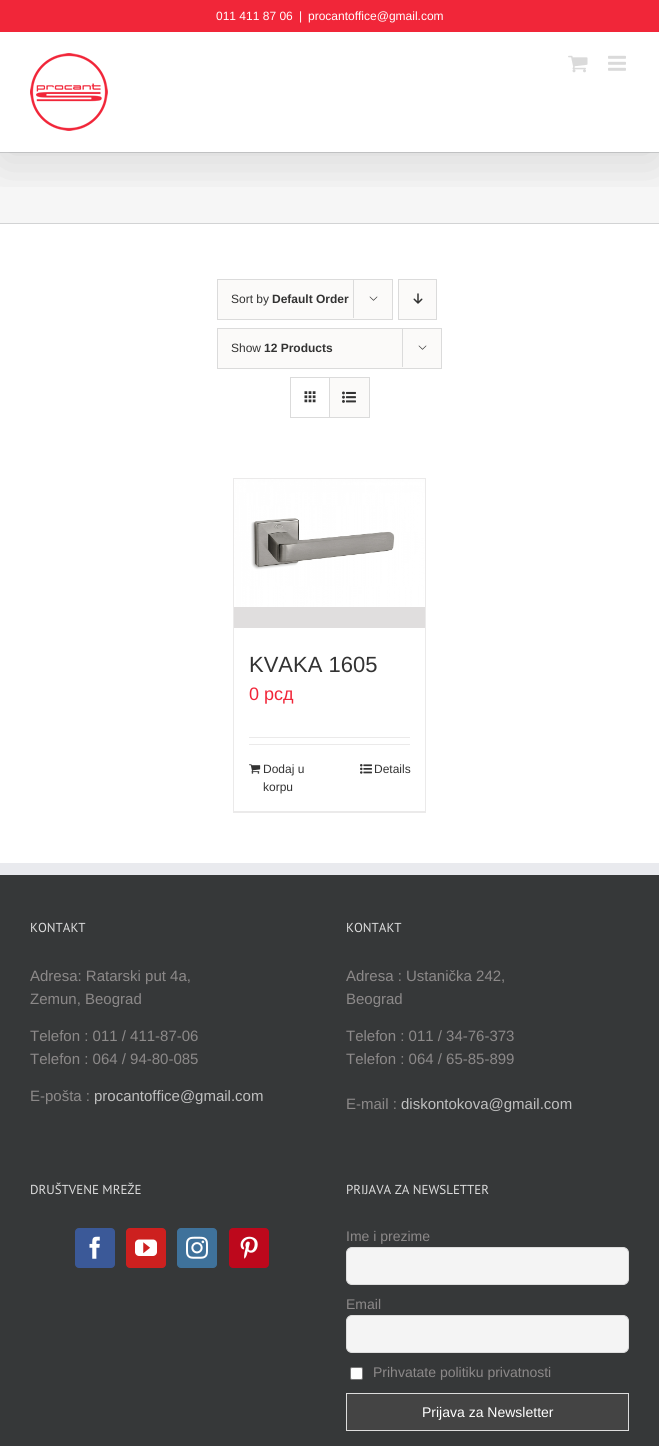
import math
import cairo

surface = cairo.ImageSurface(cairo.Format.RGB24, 659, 1446)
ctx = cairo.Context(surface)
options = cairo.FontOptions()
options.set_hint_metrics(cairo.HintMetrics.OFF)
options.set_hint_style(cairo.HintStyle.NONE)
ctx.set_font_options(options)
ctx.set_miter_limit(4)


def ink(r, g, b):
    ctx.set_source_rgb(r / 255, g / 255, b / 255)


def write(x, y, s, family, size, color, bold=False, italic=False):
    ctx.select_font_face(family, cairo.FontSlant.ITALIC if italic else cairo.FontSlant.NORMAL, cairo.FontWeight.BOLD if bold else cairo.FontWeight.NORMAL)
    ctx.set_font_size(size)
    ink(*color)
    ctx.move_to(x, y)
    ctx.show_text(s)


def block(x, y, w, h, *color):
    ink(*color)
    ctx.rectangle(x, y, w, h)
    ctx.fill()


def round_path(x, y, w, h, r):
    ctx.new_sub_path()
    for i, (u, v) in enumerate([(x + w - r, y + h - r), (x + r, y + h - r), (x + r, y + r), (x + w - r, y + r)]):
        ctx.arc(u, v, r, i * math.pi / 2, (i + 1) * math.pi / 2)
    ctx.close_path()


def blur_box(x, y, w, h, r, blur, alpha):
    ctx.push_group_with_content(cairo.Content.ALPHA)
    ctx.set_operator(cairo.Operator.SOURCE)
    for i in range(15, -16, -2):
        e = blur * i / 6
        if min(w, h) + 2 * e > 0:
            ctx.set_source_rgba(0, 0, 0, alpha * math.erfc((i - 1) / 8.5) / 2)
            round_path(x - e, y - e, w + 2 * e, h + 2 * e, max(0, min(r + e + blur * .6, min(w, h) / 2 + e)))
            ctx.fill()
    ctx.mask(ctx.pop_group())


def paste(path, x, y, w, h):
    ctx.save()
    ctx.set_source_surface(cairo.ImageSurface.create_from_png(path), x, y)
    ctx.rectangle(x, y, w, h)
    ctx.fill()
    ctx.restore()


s1 = dict(family="Liberation Sans", size=12, color=(255, 255, 255))
s2 = dict(family="Liberation Sans", size=12, color=(51, 51, 51))
s3 = dict(family="Liberation Sans", size=12, color=(51, 51, 51), bold=True)
s4 = dict(family="Liberation Sans", size=22, color=(51, 51, 51))
s5 = dict(family="Liberation Sans", size=18, color=(241, 38, 57))
s6 = dict(family="PT Sans", size=13, color=(221, 221, 221))
s7 = dict(family="Liberation Sans", size=15, color=(140, 137, 137))
s8 = dict(family="Liberation Sans", size=15, color=(191, 191, 191))
s9 = dict(family="Liberation Sans", size=14, color=(140, 137, 137))
s10 = dict(family="Liberation Sans", size=14, color=(255, 255, 255))

ink(255, 255, 255)
ctx.paint()
block(0, 153, 659, 70, 246, 246, 246)
block(0, 152, 659, 1, 210, 211, 212)
block(0, 223, 659, 1, 210, 211, 212)
ctx.save()
ctx.rectangle(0, 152, 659, 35)
ctx.clip()
ink(0, 0, 0)
blur_box(2, 12, 655, 148, 0, 25, 0.14)
ctx.restore()
block(0, 0, 659, 32, 241, 38, 57)
write(216, 20, "011 411 87 06", **s1)
write(299, 20, "|", **s1)
write(308, 20, "procantoffice@gmail.com", **s1)
paste("pic1.png", 30, 53, 78, 78)
paste("pic2.png", 568, 55, 20, 18)
paste("pic3.png", 608, 55, 18, 16)
ink(251, 250, 249)
ctx.rectangle(217.5, 279.5, 175, 40)
ctx.fill_preserve()
ink(219, 219, 219)
ctx.set_line_width(1)
ctx.stroke()
write(231, 303, "Sort by", **s2)
write(272, 303, "Default Order", **s3)
block(353, 279, 1, 39, 219, 219, 219)
paste("pic4.png", 369, 296, 9, 5)
ink(251, 250, 249)
ctx.rectangle(398.5, 279.5, 38, 40)
ctx.fill_preserve()
ink(219, 219, 219)
ctx.stroke()
paste("pic5.png", 413, 293, 10, 11)
ink(251, 250, 249)
ctx.rectangle(217.5, 328.5, 224, 40)
ctx.fill_preserve()
ink(219, 219, 219)
ctx.stroke()
write(231, 352, "Show", **s2)
write(264, 352, "12 Products", **s3)
block(402, 328, 1, 39, 219, 219, 219)
paste("pic4.png", 418, 345, 9, 5)
ctx.rectangle(290.5, 377.5, 79, 40)
ctx.stroke()
block(329, 378, 1, 39, 219, 219, 219)
paste("pic6.png", 304, 391, 12, 12)
block(330, 378, 39, 39, 251, 250, 249)
paste("pic7.png", 342, 391, 14, 12)
block(233, 478, 193, 1, 235, 234, 234)
block(425, 478, 1, 335, 235, 234, 234)
block(233, 811, 193, 2, 235, 234, 234)
block(233, 478, 1, 335, 235, 234, 234)
block(234, 607, 191, 21, 224, 222, 222)
paste("pic8.png", 234, 479, 191, 128)
write(249, 672, "KVAKA 1605", **s4)
write(249, 700, "0 рсд", **s5)
block(249, 737, 161, 1, 235, 234, 234)
block(249, 744, 161, 1, 235, 234, 234)
paste("pic9.png", 249, 764, 12, 10)
write(263, 773, "Dodaj u", **s2)
write(263, 791, "korpu", **s2)
paste("pic10.png", 360, 764, 12, 10)
write(374, 773, "Details", **s2)
block(0, 875, 659, 571, 54, 56, 57)
block(0, 863, 659, 12, 233, 234, 238)
write(30, 932, "KONTAKT", **s6)
write(30, 981, "Adresa: Ratarski put 4a,", **s7)
write(30, 1004, "Zemun, Beograd", **s7)
write(30, 1041, "Telefon : 011 / 411-87-06", **s7)
write(30, 1064, "Telefon : 064 / 94-80-085", **s7)
write(30, 1101, "E-pošta :", **s7)
write(94, 1101, "procantoffice@gmail.com", **s8)
write(346, 932, "KONTAKT", **s6)
write(346, 981, "Adresa : Ustanička 242,", **s7)
write(346, 1004, "Beograd", **s7)
write(346, 1041, "Telefon : 011 / 34-76-373", **s7)
write(346, 1064, "Telefon : 064 / 65-85-899", **s7)
write(346, 1109, "E-mail :", **s7)
write(401, 1109, "diskontokova@gmail.com", **s8)
write(30, 1194, "DRUŠTVENE MREŽE", **s6)
ink(59, 89, 152)
round_path(75.5, 1228.5, 39, 39, 3.5)
ctx.fill_preserve()
ctx.stroke()
paste("pic11.png", 89, 1236, 11, 23)
ink(205, 32, 31)
round_path(126.5, 1228.5, 39, 39, 3.5)
ctx.fill_preserve()
ctx.stroke()
paste("pic12.png", 135, 1239, 22, 17)
ink(63, 114, 155)
round_path(177.5, 1228.5, 39, 39, 3.5)
ctx.fill_preserve()
ctx.stroke()
paste("pic13.png", 186, 1236, 22, 23)
ink(189, 8, 28)
round_path(229.5, 1228.5, 39, 39, 3.5)
ctx.fill_preserve()
ctx.stroke()
paste("pic14.png", 240, 1236, 18, 23)
write(346, 1194, "PRIJAVA ZA NEWSLETTER", **s6)
write(346, 1241, "Ime i prezime", **s9)
ink(244, 244, 244)
round_path(346.5, 1247.5, 282, 37, 5.5)
ctx.fill_preserve()
ink(221, 221, 221)
ctx.stroke()
write(346, 1309, "Email", **s9)
ink(244, 244, 244)
round_path(346.5, 1315.5, 282, 37, 5.5)
ctx.fill_preserve()
ink(221, 221, 221)
ctx.stroke()
ink(255, 255, 255)
round_path(350.5, 1367.5, 12, 12, 1.5)
ctx.fill_preserve()
ink(118, 118, 118)
ctx.stroke()
write(373, 1377, "Prihvatate politiku privatnosti", **s9)
ink(68, 68, 68)
ctx.rectangle(346.5, 1393.5, 282, 37)
ctx.fill_preserve()
ink(221, 221, 221)
ctx.stroke()
write(422, 1417, "Prijava za Newsletter", **s10)
surface.write_to_png("screenshot.png")
